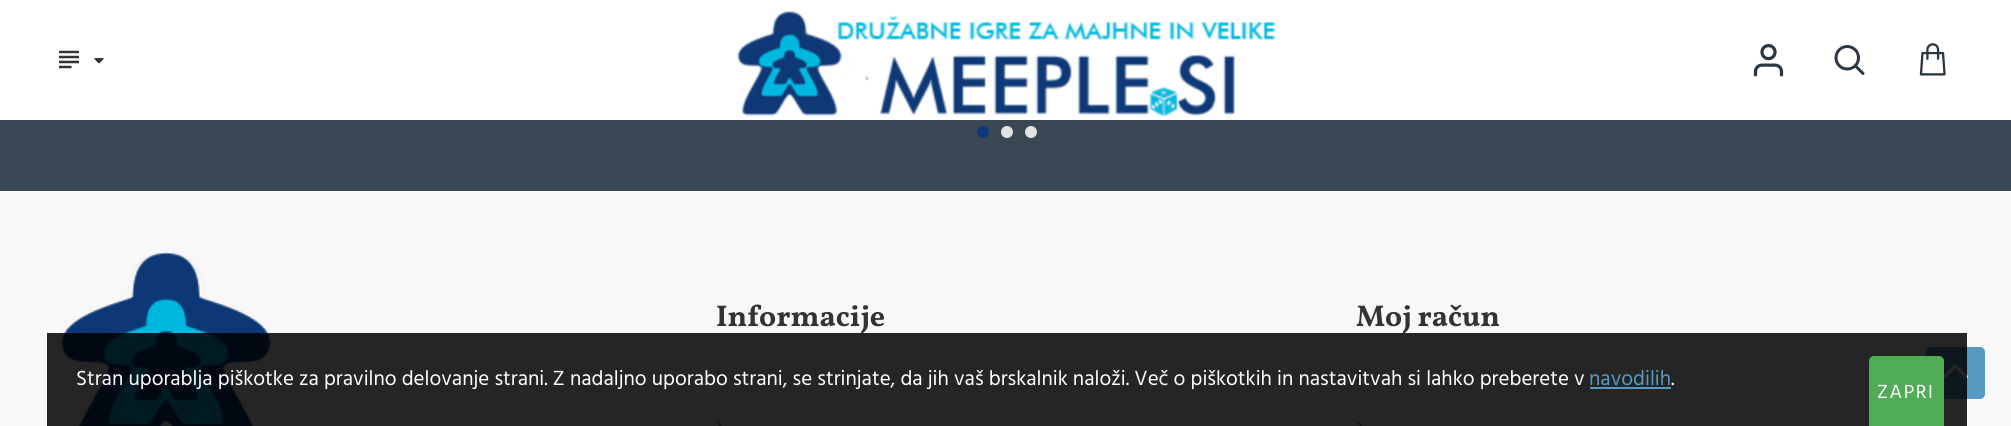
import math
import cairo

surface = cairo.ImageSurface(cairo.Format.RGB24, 2011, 426)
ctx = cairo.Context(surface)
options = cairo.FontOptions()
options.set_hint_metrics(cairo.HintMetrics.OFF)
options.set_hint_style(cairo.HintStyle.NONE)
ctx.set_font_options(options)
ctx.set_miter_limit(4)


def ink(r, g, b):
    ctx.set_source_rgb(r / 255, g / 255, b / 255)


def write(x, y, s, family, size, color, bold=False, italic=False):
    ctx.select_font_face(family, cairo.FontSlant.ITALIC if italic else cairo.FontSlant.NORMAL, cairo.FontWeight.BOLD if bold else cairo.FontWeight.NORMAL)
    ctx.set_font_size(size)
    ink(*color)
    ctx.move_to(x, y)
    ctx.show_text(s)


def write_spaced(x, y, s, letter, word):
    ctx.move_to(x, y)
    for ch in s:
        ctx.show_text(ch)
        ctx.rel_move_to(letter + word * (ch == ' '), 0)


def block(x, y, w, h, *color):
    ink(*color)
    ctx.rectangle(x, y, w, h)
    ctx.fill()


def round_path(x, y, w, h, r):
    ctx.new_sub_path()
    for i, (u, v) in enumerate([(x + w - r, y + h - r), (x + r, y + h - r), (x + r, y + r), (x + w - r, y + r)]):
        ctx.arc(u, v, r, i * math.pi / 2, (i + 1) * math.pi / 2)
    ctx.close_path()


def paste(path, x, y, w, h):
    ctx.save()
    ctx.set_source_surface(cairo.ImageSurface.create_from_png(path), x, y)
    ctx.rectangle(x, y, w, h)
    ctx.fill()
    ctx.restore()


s1 = dict(family="Vollkorn", size=30, color=(51, 51, 51), bold=True)
s2 = dict(family="Hind Madurai", size=21, color=(255, 255, 255))
s3 = dict(family="Hind Madurai", size=21, color=(87, 154, 193))

ink(248, 248, 248)
ctx.paint()
block(0, 0, 2011, 120, 255, 255, 255)
paste("pic1.png", 59, 50, 20, 19)
paste("pic2.png", 94, 58, 10, 6)
paste("pic3.png", 737, 11, 539, 106)
paste("pic4.png", 1753, 44, 31, 33)
paste("pic5.png", 1834, 45, 31, 30)
paste("pic6.png", 1919, 43, 27, 33)
block(0, 120, 2011, 71, 58, 71, 84)
ink(14, 57, 118)
ctx.arc(983, 132, 6, 0, 2 * math.pi)
ctx.fill()
ink(226, 226, 226)
ctx.arc(1007, 132, 6, 0, 2 * math.pi)
ctx.fill()
ctx.arc(1031, 132, 6, 0, 2 * math.pi)
ctx.fill()
paste("pic7.png", 56, 252, 221, 174)
write(716, 326, "Informacije", **s1)
paste("pic8.png", 715, 370, 8, 12)
paste("pic9.png", 715, 421, 7, 5)
write(1356, 326, "Moj račun", **s1)
paste("pic10.png", 1356, 370, 7, 12)
paste("pic11.png", 1356, 421, 7, 5)
ink(87, 154, 193)
round_path(1926, 347, 59, 52, 5)
ctx.fill()
paste("pic12.png", 1944, 364, 24, 15)
ctx.set_source_rgba(0, 0, 0, 0.85)
ctx.rectangle(47, 333, 1920, 93)
ctx.fill()
write(76, 385, "Stran uporablja piškotke za pravilno delovanje strani. Z nadaljno uporabo strani, se strinjate, da jih vaš brskalnik naloži. Več o piškotkih in nastavitvah si lahko preberete v", **s2)
write(1589, 385, "navodilih", **s3)
block(1590, 387, 81, 2, 87, 154, 193)
write(1671, 385, ".", **s2)
ink(80, 173, 85)
round_path(1869, 356, 75, 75, 5)
ctx.fill()
ctx.set_font_size(19.5)
ink(255, 255, 255)
write_spaced(1877, 398, "ZAPRI", 1.5, 0)
surface.write_to_png("screenshot.png")
